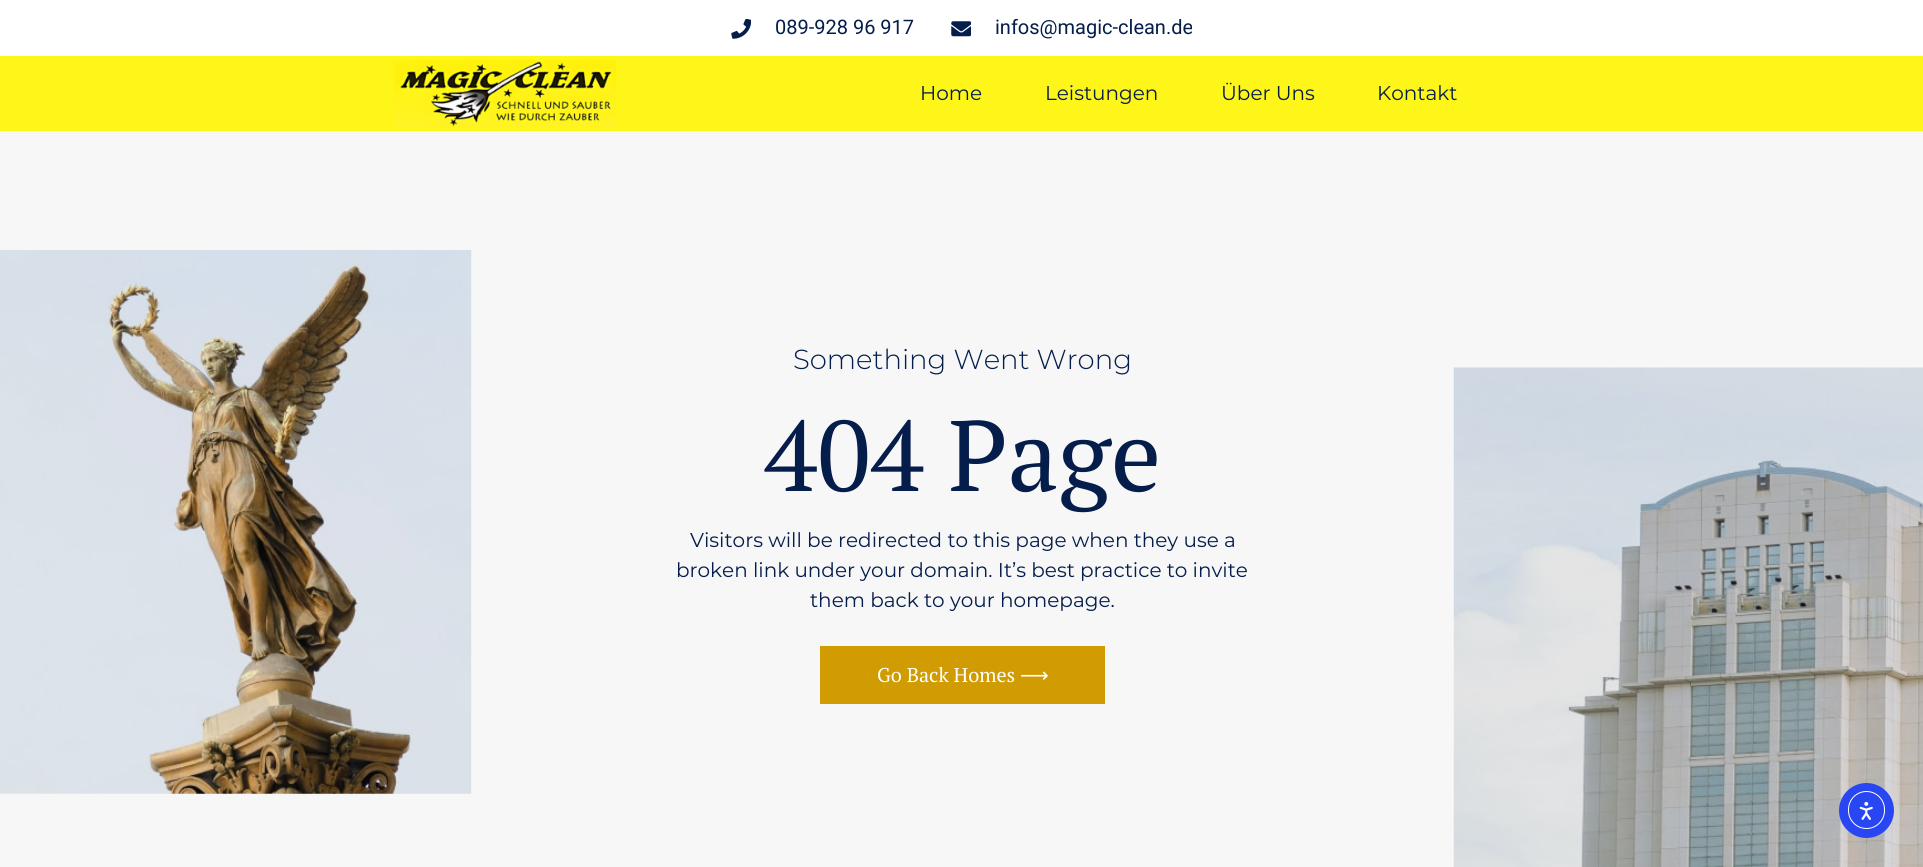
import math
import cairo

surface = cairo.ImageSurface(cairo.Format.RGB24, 1923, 867)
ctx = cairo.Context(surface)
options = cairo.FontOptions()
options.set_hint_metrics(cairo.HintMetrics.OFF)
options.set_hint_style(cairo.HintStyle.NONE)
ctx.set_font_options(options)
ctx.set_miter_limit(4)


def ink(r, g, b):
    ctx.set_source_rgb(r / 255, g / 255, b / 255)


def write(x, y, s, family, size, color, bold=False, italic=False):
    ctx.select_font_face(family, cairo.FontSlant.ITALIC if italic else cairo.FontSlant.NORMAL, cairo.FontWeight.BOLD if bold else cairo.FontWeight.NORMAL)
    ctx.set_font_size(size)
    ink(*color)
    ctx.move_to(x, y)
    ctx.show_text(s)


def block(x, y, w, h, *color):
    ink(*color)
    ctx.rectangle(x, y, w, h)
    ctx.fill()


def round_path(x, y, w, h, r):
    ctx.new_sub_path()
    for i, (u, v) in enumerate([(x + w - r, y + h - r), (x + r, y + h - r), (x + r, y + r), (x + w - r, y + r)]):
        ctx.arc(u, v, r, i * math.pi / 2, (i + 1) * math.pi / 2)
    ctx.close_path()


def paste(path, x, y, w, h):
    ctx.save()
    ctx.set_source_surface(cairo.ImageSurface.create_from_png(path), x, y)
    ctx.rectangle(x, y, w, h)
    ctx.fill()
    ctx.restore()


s1 = dict(family="Roboto", size=20, color=(5, 29, 75))
s2 = dict(family="Montserrat", size=20, color=(5, 29, 75))
s3 = dict(family="Montserrat Light", size=27.5, color=(5, 29, 75))
s4 = dict(family="PT Serif", size=100, color=(5, 29, 75))
s5 = dict(family="PT Serif", size=20, color=(255, 255, 255))
s6 = dict(family="DejaVu Sans", size=20, color=(255, 255, 255))

ink(255, 255, 255)
ctx.paint()
paste("pic1.png", 731, 19, 20, 20)
write(775, 34, "089-928 96 917", **s1)
paste("pic2.png", 951, 21, 20, 16)
ctx.save()
ctx.rectangle(731, 19, 462, 20)
ctx.clip()
write(995, 34, "infos@magic-clean.de", **s1)
ctx.restore()
block(0, 56, 1923, 75, 254, 245, 25)
paste("pic3.png", 394, 60, 223, 68)
write(920, 100, "Home", **s2)
write(1045, 100, "Leistungen", **s2)
write(1221, 100, "Über Uns", **s2)
write(1377, 100, "Kontakt", **s2)
block(0, 131, 1923, 736, 247, 247, 247)
paste("pic4.png", 0, 250, 472, 544)
write(793, 369, "Something Went Wrong", **s3)
write(764, 491, "404 Page", **s4)
write(690, 547, "Visitors will be redirected to this page when they use a", **s2)
write(676, 577, "broken link under your domain. It’s best practice to invite", **s2)
write(810, 607, "them back to your homepage.", **s2)
block(820, 646, 285, 58, 208, 156, 1)
write(877, 682, "Go Back Homes", **s5)
write(1020, 682, "⟶", **s6)
paste("pic5.png", 1453, 367, 470, 500)
ink(40, 71, 243)
ctx.arc(1866.5, 810.5, 27.5, 0, 2 * math.pi)
ctx.fill()
round_path(1848.5, 791.5, 36, 37, 18)
ink(255, 255, 255)
ctx.set_line_width(1)
ctx.stroke()
paste("pic6.png", 1859, 801, 14, 19)
surface.write_to_png("screenshot.png")
